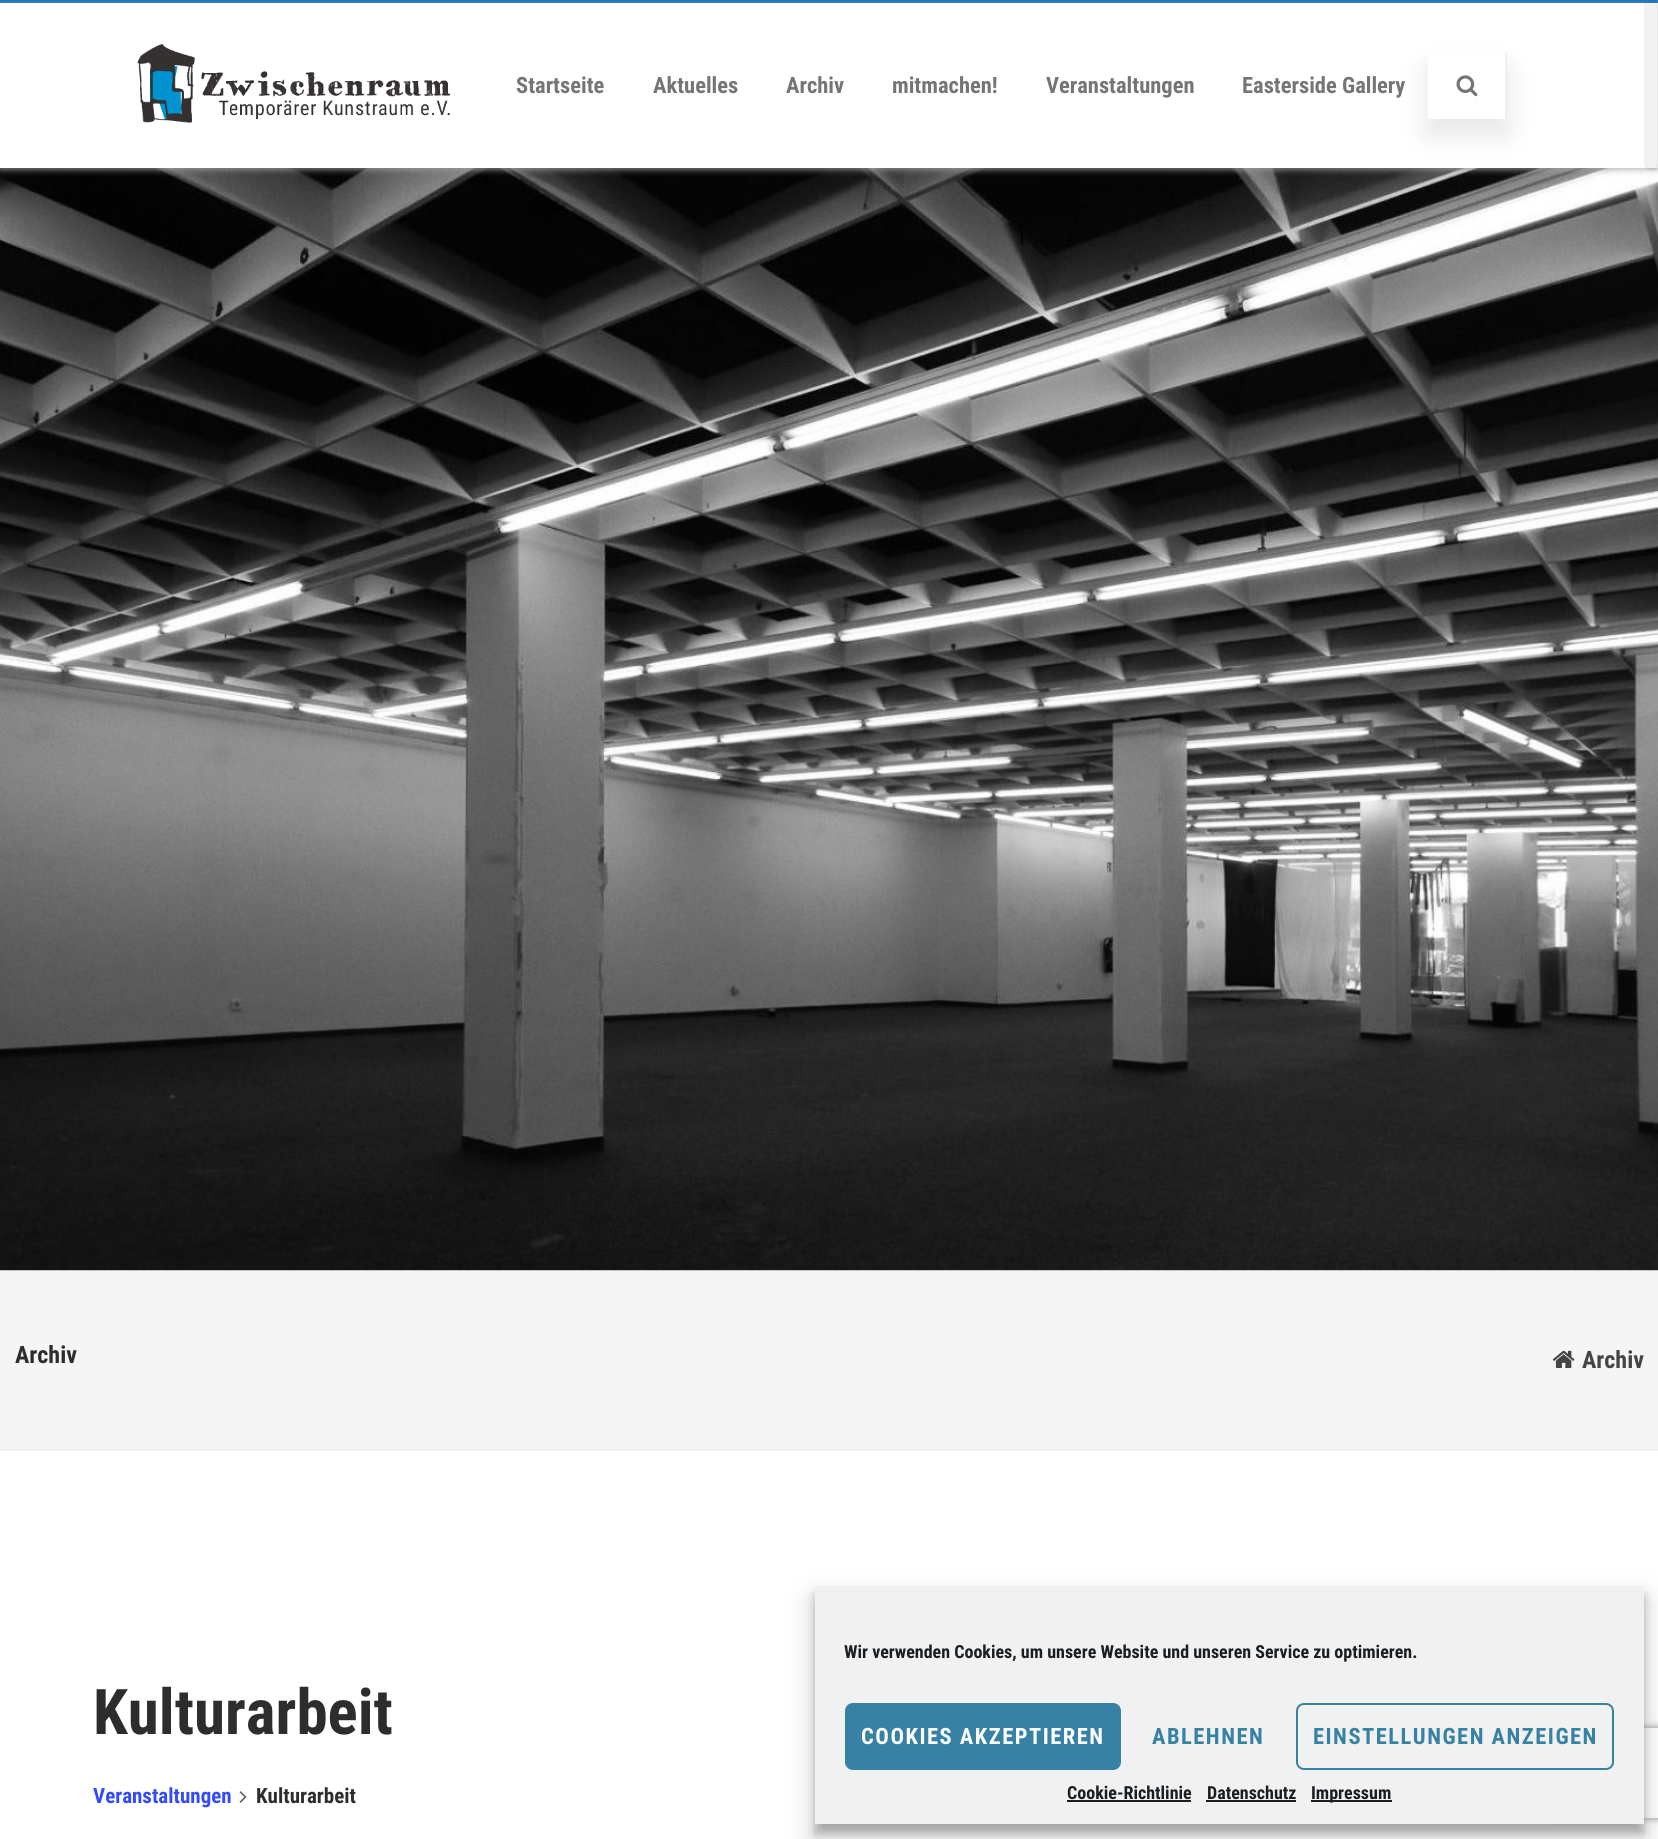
import math
import cairo

surface = cairo.ImageSurface(cairo.Format.RGB24, 1658, 1839)
ctx = cairo.Context(surface)
options = cairo.FontOptions()
options.set_hint_metrics(cairo.HintMetrics.OFF)
options.set_hint_style(cairo.HintStyle.NONE)
ctx.set_font_options(options)
ctx.set_miter_limit(4)


def ink(r, g, b):
    ctx.set_source_rgb(r / 255, g / 255, b / 255)


def write(x, y, s, family, size, color, bold=False, italic=False):
    ctx.select_font_face(family, cairo.FontSlant.ITALIC if italic else cairo.FontSlant.NORMAL, cairo.FontWeight.BOLD if bold else cairo.FontWeight.NORMAL)
    ctx.set_font_size(size)
    ink(*color)
    ctx.move_to(x, y)
    ctx.show_text(s)


def write_spaced(x, y, s, letter, word):
    ctx.move_to(x, y)
    for ch in s:
        ctx.show_text(ch)
        ctx.rel_move_to(letter + word * (ch == ' '), 0)


def block(x, y, w, h, *color):
    ink(*color)
    ctx.rectangle(x, y, w, h)
    ctx.fill()


def round_path(x, y, w, h, r):
    ctx.new_sub_path()
    for i, (u, v) in enumerate([(x + w - r, y + h - r), (x + r, y + h - r), (x + r, y + r), (x + w - r, y + r)]):
        ctx.arc(u, v, r, i * math.pi / 2, (i + 1) * math.pi / 2)
    ctx.close_path()


def blur_box(x, y, w, h, r, blur, alpha):
    ctx.push_group_with_content(cairo.Content.ALPHA)
    ctx.set_operator(cairo.Operator.SOURCE)
    for i in range(15, -16, -2):
        e = blur * i / 6
        if min(w, h) + 2 * e > 0:
            ctx.set_source_rgba(0, 0, 0, alpha * math.erfc((i - 1) / 8.5) / 2)
            round_path(x - e, y - e, w + 2 * e, h + 2 * e, max(0, min(r + e + blur * .6, min(w, h) / 2 + e)))
            ctx.fill()
    ctx.mask(ctx.pop_group())


def paste(path, x, y, w, h):
    ctx.save()
    ctx.set_source_surface(cairo.ImageSurface.create_from_png(path), x, y)
    ctx.rectangle(x, y, w, h)
    ctx.fill()
    ctx.restore()


s1 = dict(family="Roboto Condensed", size=22.5, color=(117, 117, 117), bold=True)
s2 = dict(family="Roboto Condensed", size=24, color=(45, 45, 45), bold=True)
s3 = dict(family="Roboto Condensed", size=24, color=(68, 68, 68), bold=True)
s4 = dict(family="Roboto Condensed", size=63, color=(45, 45, 45), bold=True)
s5 = dict(family="Roboto Condensed", size=21, color=(51, 74, 255), bold=True)
s6 = dict(family="Roboto Condensed", size=21, color=(45, 45, 45), bold=True)
s7 = dict(family="Roboto Condensed", size=18, color=(25, 30, 35), bold=True)

ink(255, 255, 255)
ctx.paint()
block(0, 0, 1658, 3, 30, 115, 190)
paste("pic3.png", 0, 168, 1658, 1103)
ctx.save()
ctx.set_fill_rule(cairo.FillRule.EVEN_ODD)
ctx.new_path()
ctx.move_to(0, 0)
ctx.line_to(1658, 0)
ctx.line_to(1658, 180)
ctx.line_to(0, 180)
ctx.close_path()
ctx.move_to(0, 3)
ctx.line_to(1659, 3)
ctx.line_to(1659, 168)
ctx.line_to(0, 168)
ctx.close_path()
ctx.clip()
ink(167, 169, 164)
blur_box(0, 5, 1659, 165, 0, 3, 0.75)
ctx.restore()
paste("pic1.png", 137, 44, 313, 79)
write(516, 93, "Startseite", **s1)
write(653, 93, "Aktuelles", **s1)
write(786, 93, "Archiv", **s1)
write(892, 93, "mitmachen!", **s1)
write(1046, 93, "Veranstaltungen", **s1)
ctx.save()
ctx.set_fill_rule(cairo.FillRule.EVEN_ODD)
ctx.new_path()
ctx.move_to(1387, 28)
ctx.line_to(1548, 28)
ctx.line_to(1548, 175)
ctx.line_to(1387, 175)
ctx.close_path()
ctx.move_to(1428, 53)
ctx.line_to(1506, 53)
ctx.line_to(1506, 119)
ctx.line_to(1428, 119)
ctx.close_path()
ctx.clip()
ink(64, 64, 64)
blur_box(1427, 68, 81, 67, 0, 13, 0.13)
ctx.restore()
write(1242, 93, "Easterside Gallery", **s1)
ctx.set_source_rgba(0.906, 0.906, 0.906, 0.6)
ctx.rectangle(1505, 53, 2, 66)
ctx.fill()
paste("pic2.png", 1456, 75, 22, 22)
block(0, 1271, 1658, 178, 245, 245, 245)
block(0, 1449, 1658, 2, 238, 238, 238)
write(15, 1363, "Archiv", **s2)
paste("pic4.png", 1552, 1350, 23, 18)
write(1582, 1368, "Archiv", **s3)
write(93, 1734, "Kulturarbeit", **s4)
write(93, 1803, "Veranstaltungen", **s5)
paste("pic5.png", 239, 1791, 8, 12)
write(256, 1803, "Kulturarbeit", **s6)
ctx.set_source_rgba(0.259, 0.259, 0.259, 0.07)
round_path(1646, 2, 12, 168, 6)
ctx.fill()
round_path(1645, 1, 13, 169, 6.5)
ctx.set_source_rgba(0.2, 0.2, 0.2, 0.07)
ctx.stroke()
ink(0, 0, 0)
blur_box(815, 1595, 829, 238, 0, 4.5, 0.23)
blur_box(815, 1601, 829, 238, 0, 15, 0.19)
ctx.save()
ctx.set_fill_rule(cairo.FillRule.EVEN_ODD)
ctx.new_path()
ctx.move_to(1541, 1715)
ctx.line_to(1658, 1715)
ctx.line_to(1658, 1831)
ctx.line_to(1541, 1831)
ctx.close_path()
ctx.move_to(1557, 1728)
ctx.line_to(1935, 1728)
ctx.curve_to(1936.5, 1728, 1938, 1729.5, 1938, 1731)
ctx.line_to(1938, 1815)
ctx.curve_to(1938, 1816.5, 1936.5, 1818, 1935, 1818)
ctx.line_to(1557, 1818)
ctx.curve_to(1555.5, 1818, 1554, 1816.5, 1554, 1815)
ctx.line_to(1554, 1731)
ctx.curve_to(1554, 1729.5, 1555.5, 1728, 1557, 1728)
ctx.close_path()
ctx.clip()
ink(128, 128, 128)
blur_box(1554, 1728, 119, 90, 3, 4, 1)
ctx.restore()
block(815, 1586, 829, 238, 241, 241, 241)
write(844, 1658, "Wir verwenden Cookies, um unsere Website und unseren Service zu optimieren.", **s7)
ink(54, 129, 164)
round_path(846, 1704, 274, 65, 7)
ctx.fill_preserve()
ctx.stroke()
ctx.set_font_size(22.5)
ink(254, 254, 254)
write_spaced(861, 1744, "COOKIES AKZEPTIEREN", 1.5, 0)
ink(54, 129, 164)
write_spaced(1152, 1744, "ABLEHNEN", 1.5, 0)
round_path(1297, 1704, 316, 65, 7)
ctx.stroke()
write_spaced(1313, 1744, "EINSTELLUNGEN ANZEIGEN", 1.5, 0)
write(1067, 1799, "Cookie-Richtlinie", **s7)
block(1067, 1800, 124, 2, 25, 30, 35)
write(1207, 1799, "Datenschutz", **s7)
block(1206, 1800, 90, 2, 25, 30, 35)
block(1311, 1800, 81, 2, 25, 30, 35)
write(1311, 1799, "Impressum", **s7)
surface.write_to_png("screenshot.png")
